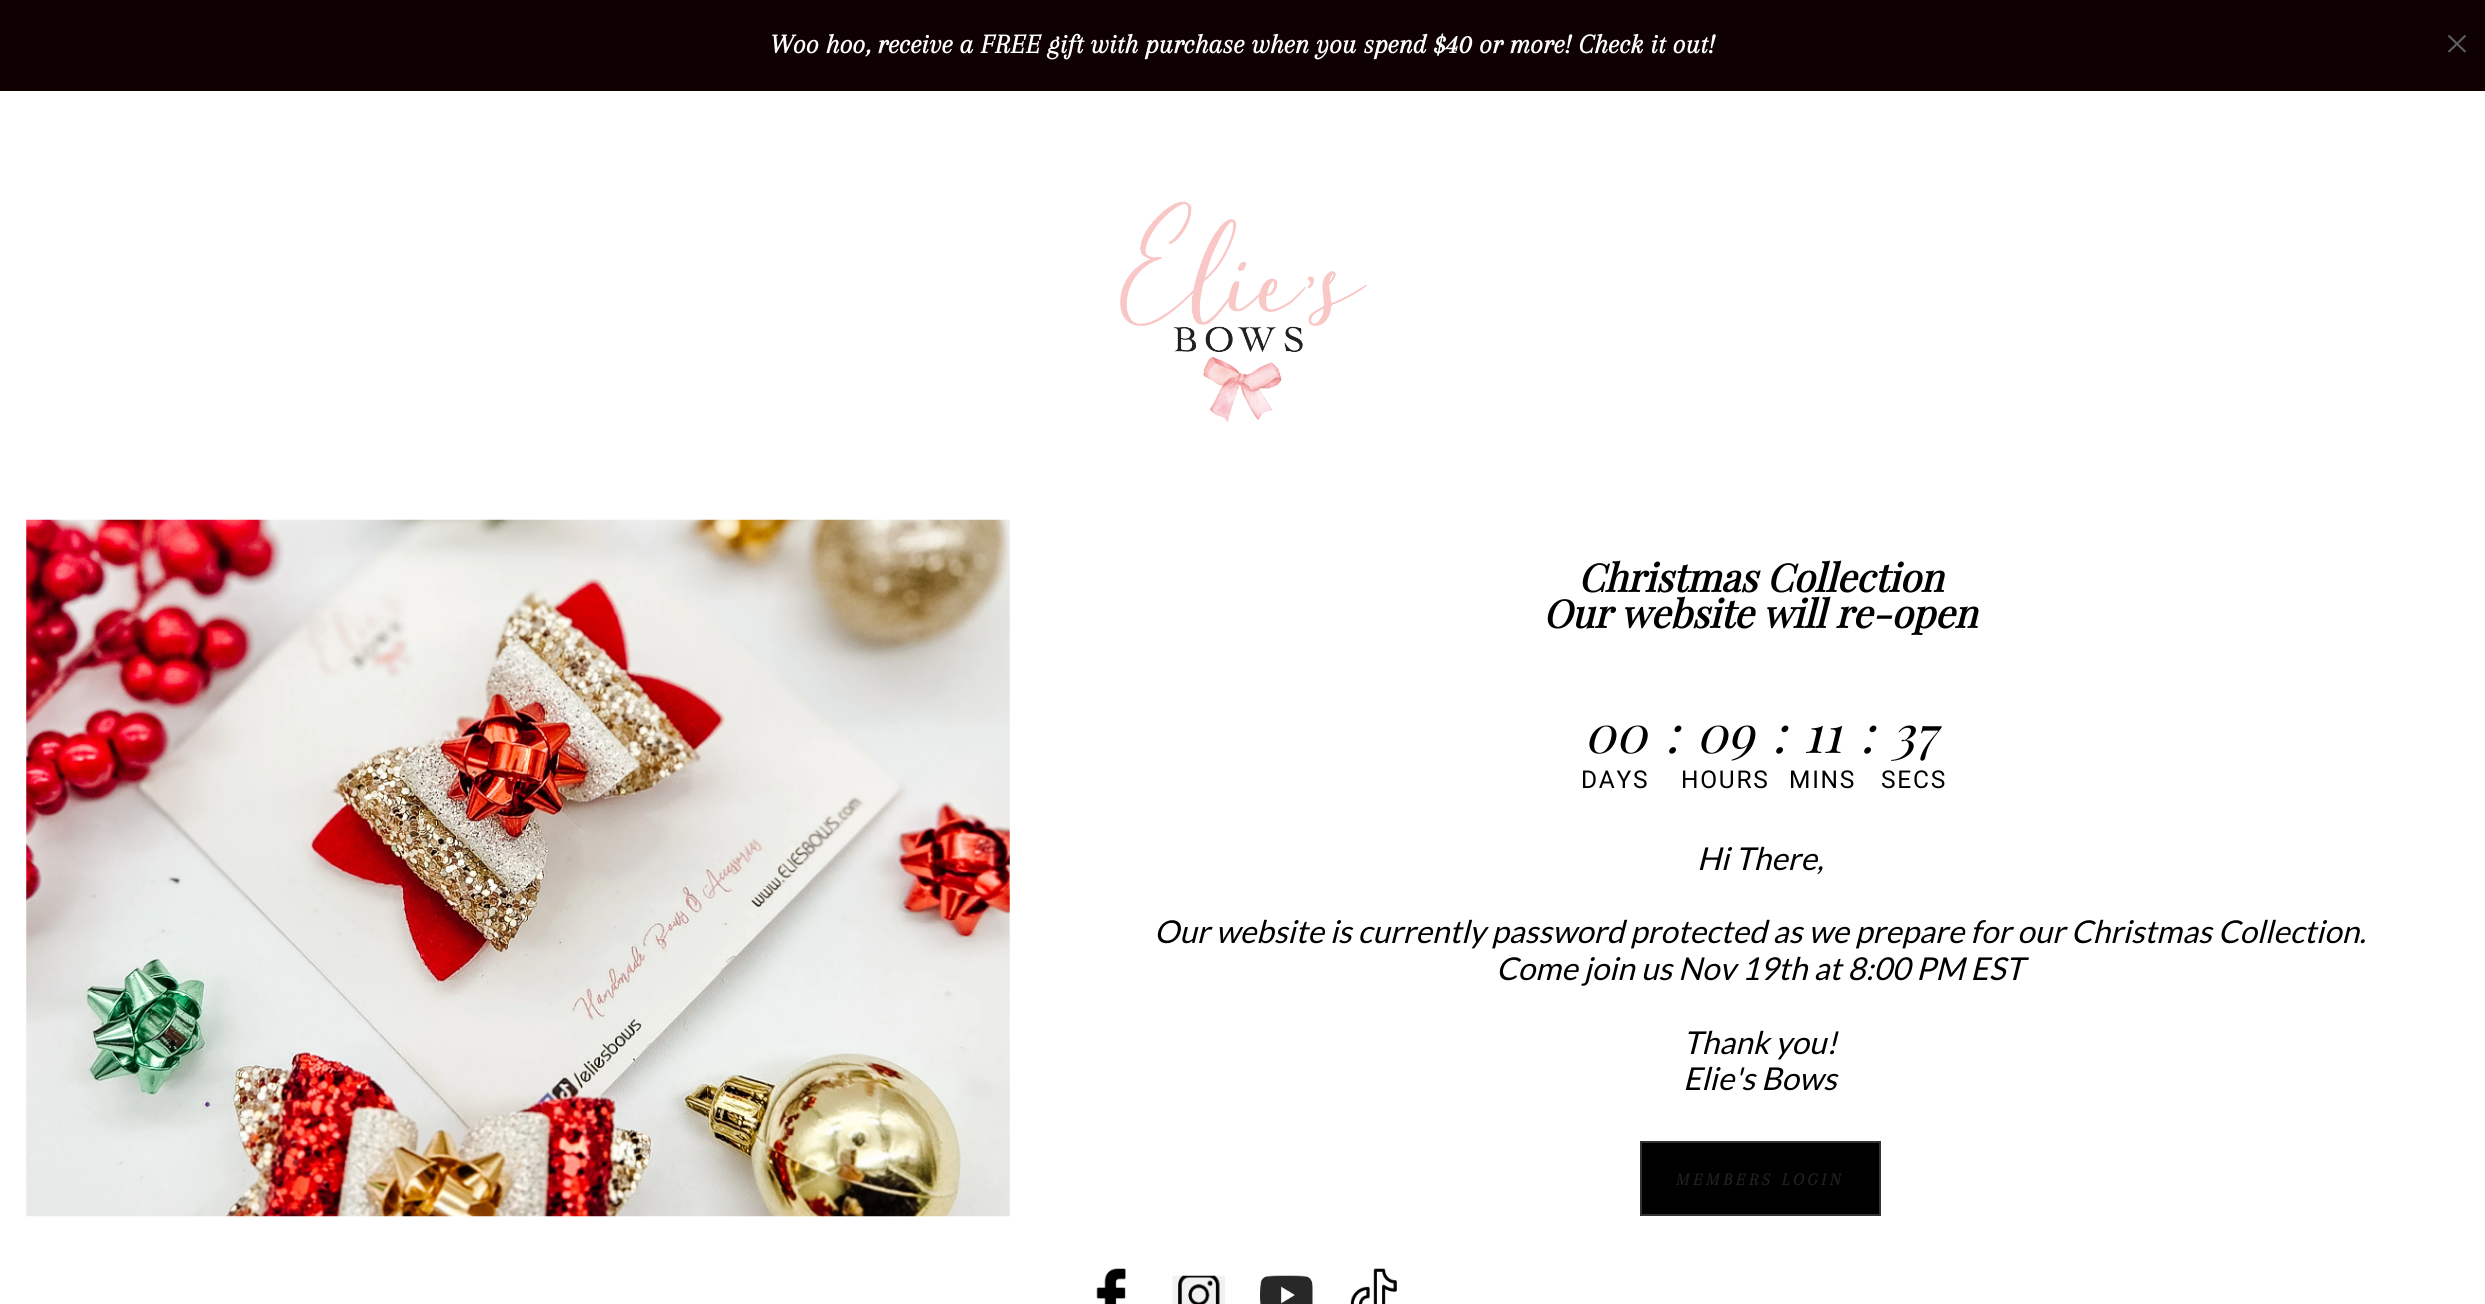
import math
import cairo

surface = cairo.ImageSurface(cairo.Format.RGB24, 2485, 1304)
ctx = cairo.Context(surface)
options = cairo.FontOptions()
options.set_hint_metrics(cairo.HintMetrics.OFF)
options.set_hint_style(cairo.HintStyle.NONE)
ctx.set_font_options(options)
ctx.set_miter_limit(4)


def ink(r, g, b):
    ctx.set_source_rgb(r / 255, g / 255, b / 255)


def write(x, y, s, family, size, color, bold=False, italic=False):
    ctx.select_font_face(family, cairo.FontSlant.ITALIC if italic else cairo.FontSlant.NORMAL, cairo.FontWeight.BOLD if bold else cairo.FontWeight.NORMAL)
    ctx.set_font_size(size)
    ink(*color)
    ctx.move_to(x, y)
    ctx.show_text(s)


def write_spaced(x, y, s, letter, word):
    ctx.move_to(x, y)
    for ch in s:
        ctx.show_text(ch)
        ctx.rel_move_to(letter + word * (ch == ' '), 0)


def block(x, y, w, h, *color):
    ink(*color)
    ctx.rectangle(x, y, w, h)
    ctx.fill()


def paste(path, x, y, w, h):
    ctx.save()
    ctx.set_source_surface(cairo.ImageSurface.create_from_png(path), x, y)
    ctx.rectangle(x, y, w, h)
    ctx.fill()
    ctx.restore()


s1 = dict(family="Arapey", size=28, color=(255, 255, 255), bold=True, italic=True)
s2 = dict(family="Playfair Display", size=38.5, color=(0, 0, 0), bold=True, italic=True)
s3 = dict(family="Playfair Display", size=52, color=(0, 0, 0), italic=True)
s4 = dict(family="Lato", size=31.5, color=(0, 0, 0), italic=True)

ink(255, 255, 255)
ctx.paint()
block(0, 0, 2485, 91, 15, 1, 1)
write(770, 53, "Woo hoo, receive a FREE gift with purchase when you spend $40 or more! Check it out!", **s1)
ctx.new_path()
ctx.move_to(2448.5, 35.5)
ctx.line_to(2465.5, 52)
ctx.move_to(2465.5, 35.5)
ctx.line_to(2448.5, 52)
ink(92, 95, 98)
ctx.set_line_width(2.1)
ctx.stroke()
paste("pic1.png", 1120, 201, 247, 221)
paste("pic2.png", 26, 519, 984, 698)
write(1578, 592, "Christmas Collection", **s2)
write(1543, 628, "Our website will re-open", **s2)
write(1584, 753, "00", **s3)
ctx.select_font_face("Roboto")
ctx.set_font_size(24.5)
write_spaced(1581, 788, "DAYS", 1.75, 0)
write(1665, 753, ":", **s3)
write(1696, 753, "09", **s3)
ctx.select_font_face("Roboto")
ctx.set_font_size(24.5)
write_spaced(1681, 788, "HOURS", 1.75, 0)
write(1772, 753, ":", **s3)
write(1803, 753, "11", **s3)
ctx.select_font_face("Roboto")
ctx.set_font_size(24.5)
write_spaced(1789, 788, "MINS", 1.75, 0)
write(1860, 753, ":", **s3)
write(1891, 753, "37", **s3)
ctx.select_font_face("Roboto")
ctx.set_font_size(24.5)
write_spaced(1881, 788, "SECS", 1.75, 0)
write(1697, 870, "Hi There,", **s4)
write(1154, 943, "Our website is currently password protected as we prepare for our Christmas Collection.", **s4)
write(1496, 980, "Come join us Nov 19th at 8:00 PM EST", **s4)
write(1683, 1054, "Thank you!", **s4)
write(1683, 1090, "Elie's Bows", **s4)
ctx.rectangle(1641, 1142, 239, 73)
ctx.fill_preserve()
ink(51, 51, 51)
ctx.set_line_width(2)
ctx.stroke()
ctx.select_font_face("Arapey", cairo.FontSlant.ITALIC, cairo.FontWeight.BOLD)
ctx.set_font_size(17.5)
ink(33, 33, 33)
write_spaced(1676, 1185, "MEMBERS LOGIN", 3.5, 0)
paste("pic3.png", 1096, 1268, 30, 36)
paste("pic4.png", 1172, 1275, 53, 29)
paste("pic5.png", 1260, 1275, 53, 29)
paste("pic6.png", 1350, 1268, 47, 36)
surface.write_to_png("screenshot.png")
